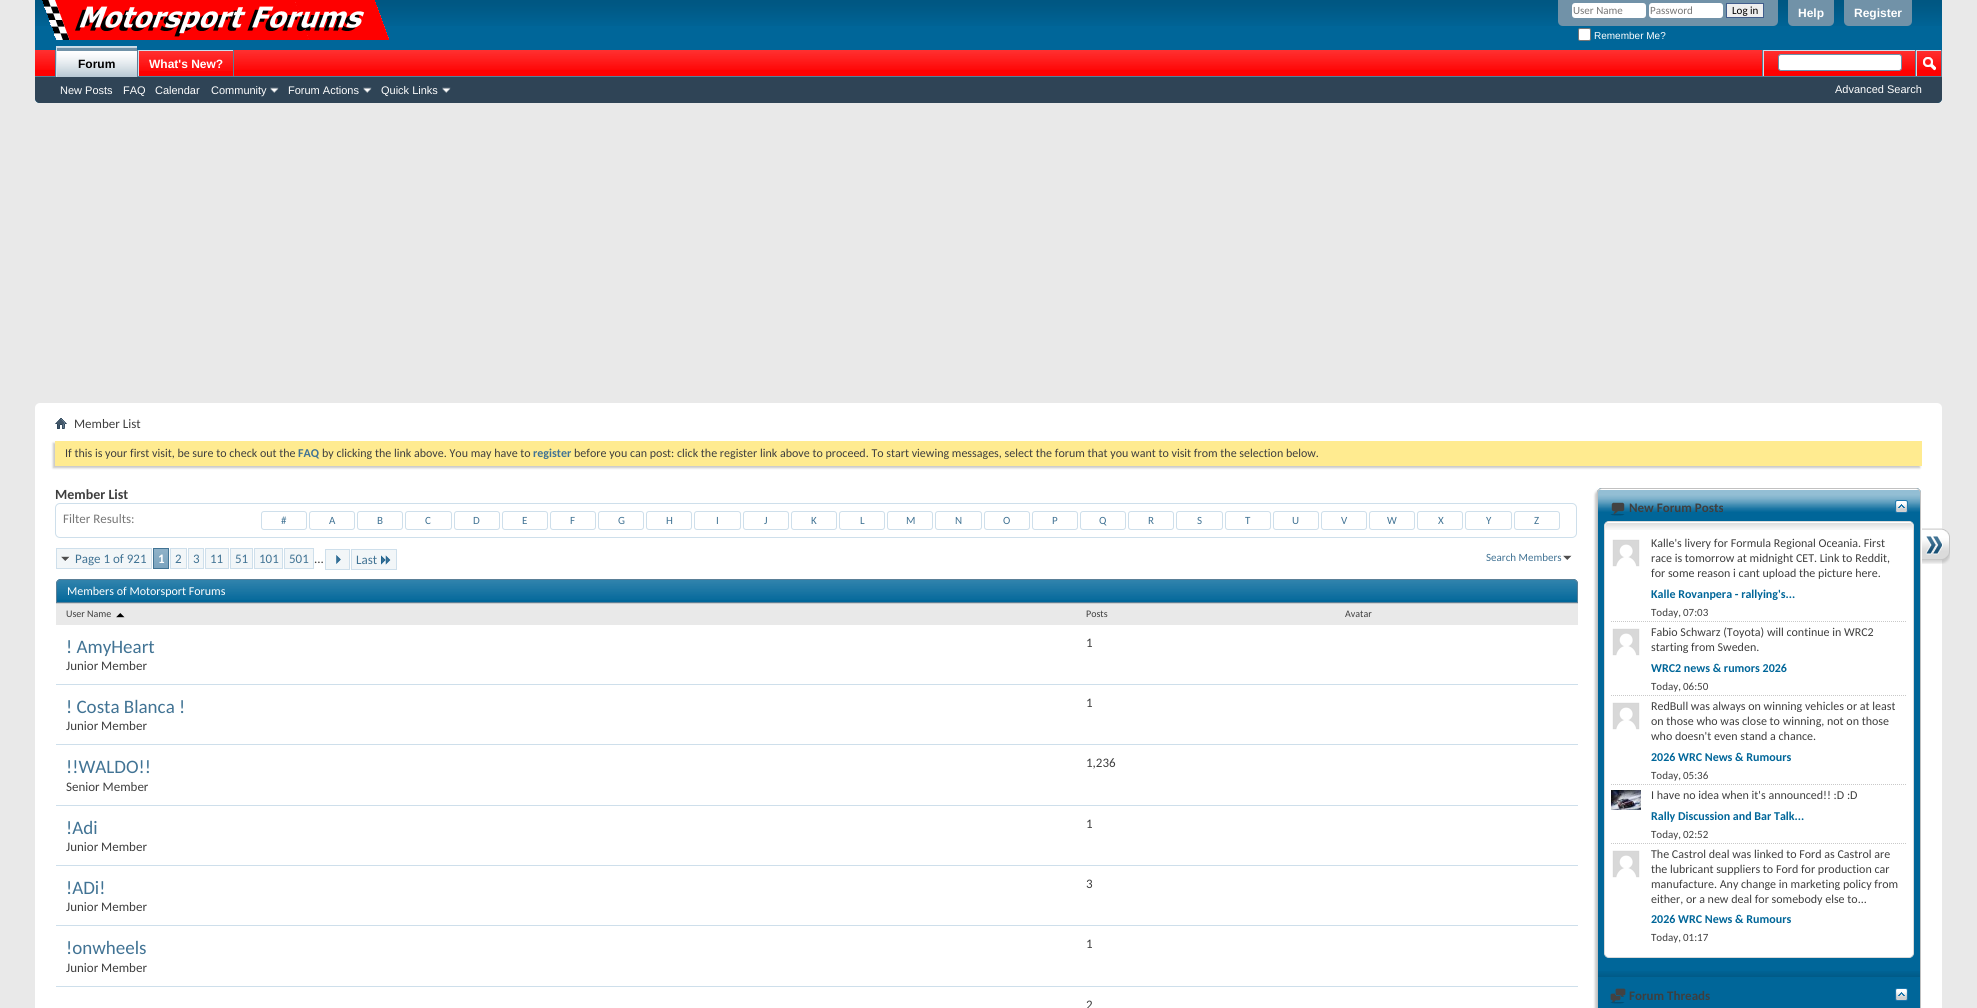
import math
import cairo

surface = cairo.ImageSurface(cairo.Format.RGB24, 1977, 1008)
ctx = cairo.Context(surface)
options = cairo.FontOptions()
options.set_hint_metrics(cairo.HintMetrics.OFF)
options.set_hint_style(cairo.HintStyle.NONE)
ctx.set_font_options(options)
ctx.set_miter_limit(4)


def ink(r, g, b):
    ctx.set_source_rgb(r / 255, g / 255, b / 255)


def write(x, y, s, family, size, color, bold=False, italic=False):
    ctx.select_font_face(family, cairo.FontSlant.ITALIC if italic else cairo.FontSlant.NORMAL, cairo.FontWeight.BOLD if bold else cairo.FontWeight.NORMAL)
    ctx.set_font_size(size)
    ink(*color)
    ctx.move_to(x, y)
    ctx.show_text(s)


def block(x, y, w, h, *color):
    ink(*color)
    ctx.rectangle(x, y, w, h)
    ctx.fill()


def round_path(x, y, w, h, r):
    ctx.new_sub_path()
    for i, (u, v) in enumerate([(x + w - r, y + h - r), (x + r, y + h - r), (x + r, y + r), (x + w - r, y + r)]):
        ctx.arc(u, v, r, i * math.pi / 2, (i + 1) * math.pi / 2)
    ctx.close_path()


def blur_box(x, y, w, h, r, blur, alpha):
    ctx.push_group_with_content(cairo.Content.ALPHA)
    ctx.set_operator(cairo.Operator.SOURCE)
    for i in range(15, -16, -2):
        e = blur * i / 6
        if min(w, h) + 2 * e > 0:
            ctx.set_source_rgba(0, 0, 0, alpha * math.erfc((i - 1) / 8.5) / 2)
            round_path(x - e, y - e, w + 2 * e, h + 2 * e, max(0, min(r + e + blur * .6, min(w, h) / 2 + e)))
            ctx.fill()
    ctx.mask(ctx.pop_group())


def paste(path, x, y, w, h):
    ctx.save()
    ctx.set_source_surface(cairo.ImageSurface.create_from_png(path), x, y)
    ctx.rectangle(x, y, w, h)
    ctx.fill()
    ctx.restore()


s1 = dict(family="Carlito", size=11, color=(119, 119, 119))
s2 = dict(family="Carlito", size=11, color=(0, 0, 0))
s3 = dict(family="Liberation Sans", size=10, color=(255, 255, 255))
s4 = dict(family="Liberation Sans", size=12, color=(255, 255, 255), bold=True)
s5 = dict(family="Liberation Sans", size=12, color=(0, 0, 0), bold=True)
s6 = dict(family="Liberation Sans", size=11, color=(255, 255, 255))
s7 = dict(family="Carlito", size=13, color=(62, 62, 62))
s8 = dict(family="Carlito", size=12, color=(62, 62, 62))
s9 = dict(family="Carlito", size=12, color=(65, 115, 148), bold=True)
s10 = dict(family="Carlito", size=14, color=(62, 62, 62), bold=True)
s11 = dict(family="Carlito", size=13, color=(119, 119, 119))
s12 = dict(family="Carlito", size=11, color=(65, 115, 148))
s13 = dict(family="Carlito", size=13, color=(65, 115, 148))
s14 = dict(family="Carlito", size=13, color=(255, 255, 255), bold=True)
s15 = dict(family="Carlito", size=12, color=(255, 255, 255))
s16 = dict(family="Carlito", size=10, color=(62, 62, 62))
s17 = dict(family="Carlito", size=19, color=(65, 115, 148))
s18 = dict(family="Carlito", size=13, color=(62, 62, 62), bold=True)
s19 = dict(family="Carlito", size=12, color=(0, 102, 153), bold=True)
s20 = dict(family="Carlito", size=11, color=(62, 62, 62))

ink(233, 233, 233)
ctx.paint()
ink(0, 102, 153)
ctx.new_path()
ctx.move_to(35, 0)
ctx.line_to(1942, 0)
ctx.line_to(1942, 98)
ctx.curve_to(1942, 101, 1940, 103, 1937, 103)
ctx.line_to(40, 103)
ctx.curve_to(37, 103, 35, 101, 35, 98)
ctx.close_path()
ctx.fill()
paste("pic1.png", 35, 0, 1907, 26)
paste("pic2.png", 42, 0, 347, 40)
ink(113, 146, 168)
ctx.new_path()
ctx.move_to(1558, 0)
ctx.line_to(1778, 0)
ctx.line_to(1778, 21)
ctx.curve_to(1778, 24, 1776, 26, 1773, 26)
ctx.line_to(1563, 26)
ctx.curve_to(1560, 26, 1558, 24, 1558, 21)
ctx.close_path()
ctx.fill()
ink(255, 255, 255)
round_path(1572, 3, 74, 15, 3)
ctx.fill()
write(1573, 14, "User Name", **s1)
ink(255, 255, 255)
round_path(1649, 3, 74, 15, 3)
ctx.fill()
write(1650, 14, "Password", **s1)
ink(239, 239, 239)
ctx.rectangle(1726.5, 3.5, 37, 14)
ctx.fill_preserve()
ink(65, 93, 141)
ctx.set_line_width(1)
ctx.stroke()
write(1732, 14, "Log in", **s2)
ink(255, 255, 255)
round_path(1578.5, 28.5, 12, 12, 1.5)
ctx.fill_preserve()
ink(118, 118, 118)
ctx.stroke()
write(1594, 39, "Remember Me?", **s3)
ink(113, 146, 168)
ctx.new_path()
ctx.move_to(1788, 0)
ctx.line_to(1834, 0)
ctx.line_to(1834, 21)
ctx.curve_to(1834, 24, 1832, 26, 1829, 26)
ctx.line_to(1793, 26)
ctx.curve_to(1790, 26, 1788, 24, 1788, 21)
ctx.close_path()
ctx.fill()
write(1798, 17, "Help", **s4)
ink(113, 146, 168)
ctx.new_path()
ctx.move_to(1844, 0)
ctx.line_to(1912, 0)
ctx.line_to(1912, 21)
ctx.curve_to(1912, 24, 1910, 26, 1907, 26)
ctx.line_to(1849, 26)
ctx.curve_to(1846, 26, 1844, 24, 1844, 21)
ctx.close_path()
ctx.fill()
write(1854, 17, "Register", **s4)
ink(47, 68, 86)
ctx.new_path()
ctx.move_to(35, 50)
ctx.line_to(1942, 50)
ctx.line_to(1942, 98)
ctx.curve_to(1942, 101, 1940, 103, 1937, 103)
ctx.line_to(40, 103)
ctx.curve_to(37, 103, 35, 101, 35, 98)
ctx.close_path()
ctx.fill()
block(35, 50, 1906, 26, 255, 0, 0)
paste("pic3.png", 35, 50, 1906, 20)
block(137, 50, 1, 26, 90, 127, 151)
block(55, 50, 1, 26, 90, 127, 151)
block(233, 50, 1, 27, 90, 127, 151)
block(138, 50, 95, 1, 206, 223, 235)
block(138, 50, 1, 27, 206, 223, 235)
block(35, 76, 1907, 1, 90, 127, 151)
block(57, 47, 80, 30, 113, 146, 168)
paste("pic4.png", 57, 47, 80, 30)
block(56, 46, 81, 1, 206, 223, 235)
block(56, 46, 1, 31, 206, 223, 235)
write(78, 68, "Forum", **s5)
block(139, 51, 94, 19, 255, 0, 0)
paste("pic5.png", 139, 51, 94, 20)
write(149, 68, "What's New?", **s4)
write(60, 94, "New Posts", **s6)
write(123, 94, "FAQ", **s6)
write(155, 94, "Calendar", **s6)
write(211, 94, "Community", **s6)
paste("pic6.png", 270, 87, 9, 6)
write(288, 94, "Forum Actions", **s6)
paste("pic6.png", 363, 87, 9, 6)
write(381, 94, "Quick Links", **s6)
paste("pic6.png", 442, 87, 9, 6)
block(1762, 50, 1, 26, 90, 127, 151)
block(1763, 50, 152, 1, 206, 223, 235)
block(1763, 50, 1, 26, 206, 223, 235)
ink(255, 255, 255)
round_path(1778.5, 54.5, 123, 16, 2.5)
ctx.fill_preserve()
ink(107, 145, 171)
ctx.stroke()
block(1941, 50, 1, 26, 90, 127, 151)
block(1915, 50, 1, 26, 90, 127, 151)
block(1916, 50, 25, 1, 206, 223, 235)
block(1916, 50, 1, 26, 206, 223, 235)
paste("pic7.png", 1923, 57, 13, 14)
write(1835, 93, "Advanced Search", **s6)
round_path(35, 403, 1907, 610, 5)
ctx.fill()
paste("pic8.png", 55, 418, 12, 11)
write(74, 428, "Member List", **s7)
ink(200, 200, 200)
blur_box(53, 443, 1867, 25, 0, 1, 1)
block(55, 441, 1867, 25, 255, 235, 144)
write(65, 457, "If this is your first visit, be sure to check out the", **s8)
write(298, 457, "FAQ", **s9)
write(322, 457, "by clicking the link above. You may have to", **s8)
write(533, 457, "register", **s9)
write(574, 457, "before you can post: click the register link above to proceed. To start viewing messages, select the forum that you want to visit from the selection below.", **s8)
write(55, 499, "Member List", **s10)
round_path(55.5, 503.5, 1521, 34, 4.5)
ink(206, 223, 235)
ctx.stroke()
write(63, 523, "Filter Results:", **s11)
round_path(261.5, 511.5, 45, 18, 2.5)
ink(206, 223, 235)
ctx.stroke()
write(281, 524, "#", **s12)
round_path(309.5, 511.5, 45, 18, 2.5)
ink(206, 223, 235)
ctx.stroke()
write(329, 524, "A", **s12)
round_path(357.5, 511.5, 45, 18, 2.5)
ink(206, 223, 235)
ctx.stroke()
write(377, 524, "B", **s12)
round_path(405.5, 511.5, 46, 18, 2.5)
ink(206, 223, 235)
ctx.stroke()
write(425, 524, "C", **s12)
round_path(454.5, 511.5, 45, 18, 2.5)
ink(206, 223, 235)
ctx.stroke()
write(473, 524, "D", **s12)
round_path(502.5, 511.5, 45, 18, 2.5)
ink(206, 223, 235)
ctx.stroke()
write(522, 524, "E", **s12)
round_path(550.5, 511.5, 45, 18, 2.5)
ink(206, 223, 235)
ctx.stroke()
write(570, 524, "F", **s12)
round_path(598.5, 511.5, 45, 18, 2.5)
ink(206, 223, 235)
ctx.stroke()
write(618, 524, "G", **s12)
round_path(646.5, 511.5, 45, 18, 2.5)
ink(206, 223, 235)
ctx.stroke()
write(666, 524, "H", **s12)
round_path(694.5, 511.5, 46, 18, 2.5)
ink(206, 223, 235)
ctx.stroke()
write(716, 524, "I", **s12)
round_path(743.5, 511.5, 45, 18, 2.5)
ink(206, 223, 235)
ctx.stroke()
write(764, 524, "J", **s12)
round_path(791.5, 511.5, 45, 18, 2.5)
ink(206, 223, 235)
ctx.stroke()
write(811, 524, "K", **s12)
round_path(839.5, 511.5, 45, 18, 2.5)
ink(206, 223, 235)
ctx.stroke()
write(860, 524, "L", **s12)
round_path(887.5, 511.5, 45, 18, 2.5)
ink(206, 223, 235)
ctx.stroke()
write(906, 524, "M", **s12)
round_path(935.5, 511.5, 46, 18, 2.5)
ink(206, 223, 235)
ctx.stroke()
write(955, 524, "N", **s12)
round_path(984.5, 511.5, 45, 18, 2.5)
ink(206, 223, 235)
ctx.stroke()
write(1003, 524, "O", **s12)
round_path(1032.5, 511.5, 45, 18, 2.5)
ink(206, 223, 235)
ctx.stroke()
write(1052, 524, "P", **s12)
round_path(1080.5, 511.5, 45, 18, 2.5)
ink(206, 223, 235)
ctx.stroke()
write(1099, 524, "Q", **s12)
round_path(1128.5, 511.5, 45, 18, 2.5)
ink(206, 223, 235)
ctx.stroke()
write(1148, 524, "R", **s12)
round_path(1176.5, 511.5, 46, 18, 2.5)
ink(206, 223, 235)
ctx.stroke()
write(1197, 524, "S", **s12)
round_path(1225.5, 511.5, 45, 18, 2.5)
ink(206, 223, 235)
ctx.stroke()
write(1245, 524, "T", **s12)
round_path(1273.5, 511.5, 45, 18, 2.5)
ink(206, 223, 235)
ctx.stroke()
write(1292, 524, "U", **s12)
round_path(1321.5, 511.5, 45, 18, 2.5)
ink(206, 223, 235)
ctx.stroke()
write(1341, 524, "V", **s12)
round_path(1369.5, 511.5, 45, 18, 2.5)
ink(206, 223, 235)
ctx.stroke()
write(1387, 524, "W", **s12)
round_path(1417.5, 511.5, 45, 18, 2.5)
ink(206, 223, 235)
ctx.stroke()
write(1438, 524, "X", **s12)
round_path(1465.5, 511.5, 46, 18, 2.5)
ink(206, 223, 235)
ctx.stroke()
write(1486, 524, "Y", **s12)
round_path(1514.5, 511.5, 45, 18, 2.5)
ink(206, 223, 235)
ctx.stroke()
write(1534, 524, "Z", **s12)
block(57, 549, 94, 19, 242, 246, 248)
paste("pic9.png", 61, 556, 9, 6)
ctx.rectangle(56.5, 548.5, 95, 20)
ink(206, 223, 235)
ctx.stroke()
write(75, 563, "Page 1 of 921", **s13)
block(154, 549, 14, 19, 117, 159, 187)
paste("pic10.png", 154, 549, 14, 19)
ctx.rectangle(153.5, 548.5, 15, 20)
ink(65, 115, 148)
ctx.stroke()
write(158, 563, "1", **s14)
ink(242, 246, 248)
ctx.rectangle(170.5, 548.5, 16, 20)
ctx.fill_preserve()
ink(206, 223, 235)
ctx.stroke()
write(175, 563, "2", **s13)
ink(242, 246, 248)
ctx.rectangle(188.5, 548.5, 15, 20)
ctx.fill_preserve()
ink(206, 223, 235)
ctx.stroke()
write(193, 563, "3", **s13)
ink(242, 246, 248)
ctx.rectangle(205.5, 548.5, 23, 20)
ctx.fill_preserve()
ink(206, 223, 235)
ctx.stroke()
write(210, 563, "11", **s13)
ink(242, 246, 248)
ctx.rectangle(230.5, 548.5, 22, 20)
ctx.fill_preserve()
ink(206, 223, 235)
ctx.stroke()
write(235, 563, "51", **s13)
ink(242, 246, 248)
ctx.rectangle(254.5, 548.5, 28, 20)
ctx.fill_preserve()
ink(206, 223, 235)
ctx.stroke()
write(259, 563, "101", **s13)
ink(242, 246, 248)
ctx.rectangle(284.5, 548.5, 29, 20)
ctx.fill_preserve()
ink(206, 223, 235)
ctx.stroke()
write(289, 563, "501", **s13)
write(314, 563, "...", **s7)
ink(242, 246, 248)
ctx.rectangle(325.5, 549.5, 24, 20)
ctx.fill_preserve()
ink(206, 223, 235)
ctx.stroke()
paste("pic11.png", 336, 555, 5, 9)
block(352, 550, 44, 19, 242, 246, 248)
write(356, 564, "Last", **s13)
block(351, 549, 46, 1, 206, 223, 235)
block(351, 569, 26, 1, 206, 223, 235)
block(351, 549, 1, 21, 206, 223, 235)
block(396, 549, 1, 21, 206, 223, 235)
block(377, 569, 20, 1, 206, 223, 235)
paste("pic12.png", 381, 555, 10, 10)
write(1486, 561, "Search Members", **s12)
paste("pic13.png", 1563, 555, 9, 5)
ink(0, 102, 153)
ctx.new_path()
ctx.move_to(61, 579)
ctx.line_to(1573, 579)
ctx.curve_to(1576, 579, 1578, 581, 1578, 584)
ctx.line_to(1578, 603)
ctx.line_to(56, 603)
ctx.line_to(56, 584)
ctx.curve_to(56, 581, 58, 579, 61, 579)
ctx.close_path()
ctx.fill()
paste("pic14.png", 56, 580, 1522, 20)
ctx.new_path()
ctx.move_to(61, 579.5)
ctx.line_to(1573, 579.5)
ctx.curve_to(1575.5, 579.5, 1577.5, 581.5, 1577.5, 584)
ctx.line_to(1577.5, 602.5)
ctx.line_to(56.5, 602.5)
ctx.line_to(56.5, 584)
ctx.curve_to(56.5, 581.5, 58.5, 579.5, 61, 579.5)
ctx.close_path()
ink(90, 127, 151)
ctx.stroke()
write(67, 595, "Members of Motorsport Forums", **s15)
block(56, 604, 1522, 21, 233, 233, 233)
block(56, 603, 1522, 1, 206, 206, 206)
write(66, 617, "User Name", **s16)
paste("pic15.png", 116, 613, 9, 5)
write(1086, 617, "Posts", **s16)
write(1345, 617, "Avatar", **s16)
write(66, 653, "! AmyHeart", **s17)
write(66, 670, "Junior Member", **s7)
write(1086, 647, "1", **s7)
block(56, 684, 1522, 1, 206, 223, 235)
write(66, 713, "! Costa Blanca !", **s17)
write(66, 730, "Junior Member", **s7)
write(1086, 707, "1", **s7)
block(56, 744, 1522, 1, 206, 223, 235)
write(66, 773, "!!WALDO!!", **s17)
write(66, 791, "Senior Member", **s7)
write(1086, 767, "1,236", **s7)
block(56, 805, 1522, 1, 206, 223, 235)
write(66, 834, "!Adi", **s17)
write(66, 851, "Junior Member", **s7)
write(1086, 828, "1", **s7)
block(56, 865, 1522, 1, 206, 223, 235)
write(66, 894, "!ADi!", **s17)
write(66, 911, "Junior Member", **s7)
write(1086, 888, "3", **s7)
block(56, 925, 1522, 1, 206, 223, 235)
write(66, 954, "!onwheels", **s17)
write(66, 972, "Junior Member", **s7)
write(1086, 948, "1", **s7)
block(56, 986, 1522, 1, 206, 223, 235)
write(1086, 1009, "2", **s7)
paste("pic25.png", 1922, 528, 28, 36)
ink(200, 200, 200)
blur_box(1595, 490, 324, 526, 5, 1, 1)
ink(0, 102, 153)
round_path(1597, 488, 324, 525, 5)
ctx.fill()
paste("pic16.png", 1597, 489, 324, 23)
round_path(1597.5, 488.5, 323, 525, 4.5)
ink(193, 193, 193)
ctx.stroke()
paste("pic17.png", 1610, 502, 15, 14)
write(1629, 512, "New Forum Posts", **s18)
paste("pic18.png", 1895, 500, 13, 13)
ink(255, 255, 255)
round_path(1604.5, 521.5, 309, 436, 4.5)
ctx.fill_preserve()
ink(218, 218, 218)
ctx.stroke()
ink(255, 255, 255)
round_path(1605, 522, 308, 435, 5)
ctx.fill()
paste("pic19.png", 1605, 523, 308, 7)
block(1910, 522, 1, 1, 255, 255, 255)
paste("pic20.png", 1612, 539, 28, 28)
write(1651, 547, "Kalle's livery for Formula Regional Oceania. First", **s8)
write(1651, 562, "race is tomorrow at midnight CET. Link to Reddit,", **s8)
write(1651, 577, "for some reason i cant upload the picture here.", **s8)
write(1651, 598, "Kalle Rovanpera - rallying's...", **s19)
write(1651, 616, "Today,", **s20)
write(1683, 616, "07:03", **s20)
ctx.new_path()
ctx.move_to(1611, 621.5)
ctx.line_to(1907, 621.5)
ink(201, 201, 201)
ctx.set_dash([1, 1])
ctx.stroke()
paste("pic20.png", 1612, 628, 28, 28)
write(1651, 636, "Fabio Schwarz (Toyota) will continue in WRC2", **s8)
write(1651, 651, "starting from Sweden.", **s8)
write(1651, 672, "WRC2 news & rumors 2026", **s19)
write(1651, 690, "Today,", **s20)
write(1683, 690, "06:50", **s20)
ctx.new_path()
ctx.move_to(1611, 695.5)
ctx.line_to(1907, 695.5)
ink(201, 201, 201)
ctx.stroke()
paste("pic20.png", 1612, 702, 28, 28)
write(1651, 710, "RedBull was always on winning vehicles or at least", **s8)
write(1651, 725, "on those who was close to winning, not on those", **s8)
write(1651, 740, "who doesn't even stand a chance.", **s8)
write(1651, 761, "2026 WRC News & Rumours", **s19)
write(1651, 779, "Today,", **s20)
write(1683, 779, "05:36", **s20)
ctx.new_path()
ctx.move_to(1611, 784.5)
ctx.line_to(1907, 784.5)
ink(201, 201, 201)
ctx.stroke()
paste("pic21.png", 1611, 790, 30, 20)
write(1651, 799, "I have no idea when it's announced!! :D :D", **s8)
write(1651, 820, "Rally Discussion and Bar Talk...", **s19)
write(1651, 838, "Today,", **s20)
write(1683, 838, "02:52", **s20)
ctx.new_path()
ctx.move_to(1611, 843.5)
ctx.line_to(1907, 843.5)
ink(201, 201, 201)
ctx.stroke()
paste("pic20.png", 1612, 850, 28, 28)
write(1651, 858, "The Castrol deal was linked to Ford as Castrol are", **s8)
write(1651, 873, "the lubricant suppliers to Ford for production car", **s8)
write(1651, 888, "manufacture. Any change in marketing policy from", **s8)
write(1651, 903, "either, or a new deal for somebody else to...", **s8)
write(1651, 923, "2026 WRC News & Rumours", **s19)
write(1651, 941, "Today,", **s20)
write(1683, 941, "01:17", **s20)
paste("pic22.png", 1598, 971, 322, 6)
paste("pic23.png", 1610, 988, 16, 16)
write(1629, 1000, "Forum Threads", **s18)
paste("pic24.png", 1895, 988, 13, 13)
surface.write_to_png("screenshot.png")
